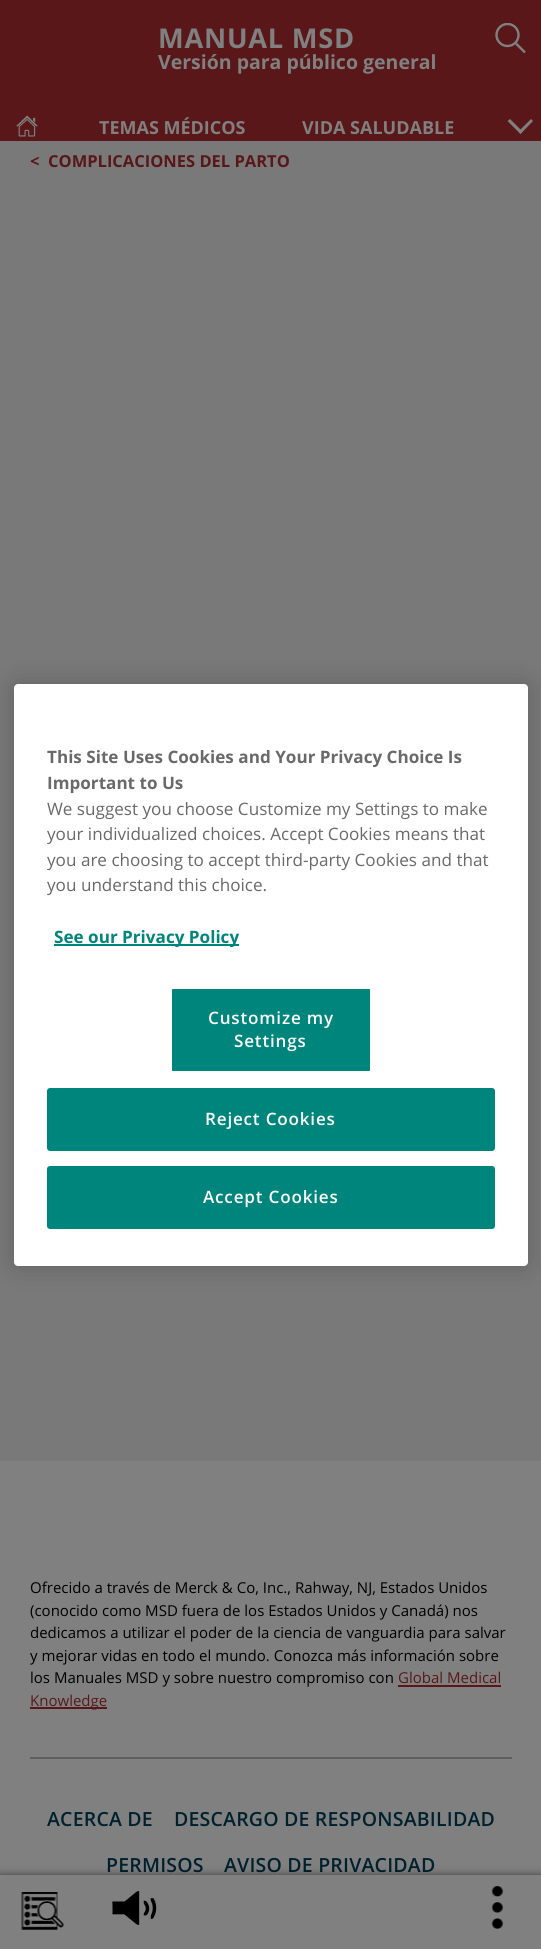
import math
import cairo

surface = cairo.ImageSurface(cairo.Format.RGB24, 541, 1949)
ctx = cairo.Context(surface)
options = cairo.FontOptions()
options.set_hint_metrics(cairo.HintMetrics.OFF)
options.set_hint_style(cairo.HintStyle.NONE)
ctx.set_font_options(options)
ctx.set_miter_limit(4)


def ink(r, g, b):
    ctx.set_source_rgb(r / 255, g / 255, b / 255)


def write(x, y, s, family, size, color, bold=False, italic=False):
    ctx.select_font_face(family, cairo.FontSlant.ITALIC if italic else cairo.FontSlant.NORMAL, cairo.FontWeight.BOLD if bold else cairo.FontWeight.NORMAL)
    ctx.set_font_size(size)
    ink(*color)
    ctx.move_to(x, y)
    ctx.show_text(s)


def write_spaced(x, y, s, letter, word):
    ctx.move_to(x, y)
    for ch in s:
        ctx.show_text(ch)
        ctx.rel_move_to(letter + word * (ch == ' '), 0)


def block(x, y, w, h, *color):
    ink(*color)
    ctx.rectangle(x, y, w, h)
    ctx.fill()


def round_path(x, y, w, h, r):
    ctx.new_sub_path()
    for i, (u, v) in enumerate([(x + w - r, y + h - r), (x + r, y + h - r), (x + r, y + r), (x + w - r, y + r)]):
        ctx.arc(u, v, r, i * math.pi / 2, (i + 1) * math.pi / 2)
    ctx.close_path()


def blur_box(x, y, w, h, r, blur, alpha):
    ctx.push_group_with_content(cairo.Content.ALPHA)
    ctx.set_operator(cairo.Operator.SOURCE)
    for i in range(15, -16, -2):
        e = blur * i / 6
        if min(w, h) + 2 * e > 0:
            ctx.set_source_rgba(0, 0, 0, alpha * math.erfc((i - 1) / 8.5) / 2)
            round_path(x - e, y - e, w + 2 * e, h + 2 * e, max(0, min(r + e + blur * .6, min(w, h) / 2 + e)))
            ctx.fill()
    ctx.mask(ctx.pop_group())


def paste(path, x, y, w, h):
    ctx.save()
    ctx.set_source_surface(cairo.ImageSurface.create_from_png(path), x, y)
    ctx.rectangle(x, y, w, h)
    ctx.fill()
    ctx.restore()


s1 = dict(family="Open Sans", size=19.5, color=(128, 128, 128), bold=True)
s2 = dict(family="Open Sans", size=18, color=(128, 128, 128), bold=True)
s3 = dict(family="Open Sans", size=16.5, color=(89, 23, 25), bold=True)
s4 = dict(family="Open Sans", size=15, color=(0, 0, 0))
s5 = dict(family="Open Sans", size=15, color=(89, 23, 25))
s6 = dict(family="Open Sans", size=17.1, color=(105, 105, 105), bold=True)
s7 = dict(family="Open Sans", size=17.1, color=(105, 105, 105))
s8 = dict(family="Open Sans", size=17.1, color=(0, 133, 124), bold=True)

ink(121, 121, 121)
ctx.paint()
block(0, 0, 541, 141, 89, 23, 25)
ctx.select_font_face("Open Sans", cairo.FontSlant.NORMAL, cairo.FontWeight.BOLD)
ctx.set_font_size(27.25)
ink(128, 128, 128)
write_spaced(158, 48, "MANUAL MSD", 0.75, 0)
write(158, 69, "Versión para público general", **s1)
ctx.save()
ctx.rectangle(495, 23, 32, 31)
ctx.clip()
ctx.arc(507.5, 35, 11, 0, 2 * math.pi)
ctx.set_line_width(2.4)
ctx.stroke()
ctx.restore()
ctx.new_path()
ctx.move_to(525, 52.5)
ctx.line_to(516, 43.5)
ctx.set_line_width(2.4)
ctx.stroke()
paste("pic1.png", 16, 115, 22, 22)
write(99, 134, "TEMAS MÉDICOS", **s2)
write(302, 134, "VIDA SALUDABLE", **s2)
ctx.new_path()
ctx.move_to(531, 119)
ctx.line_to(533, 121)
ctx.line_to(520.5, 134)
ctx.line_to(518.5, 131.5)
ctx.close_path()
ctx.fill()
ctx.new_path()
ctx.move_to(510, 119)
ctx.line_to(522.5, 131.5)
ctx.line_to(520.5, 134)
ctx.line_to(507.5, 121)
ctx.close_path()
ctx.fill()
write(30, 167, "<", **s3)
write(48, 167, "COMPLICACIONES DEL PARTO", **s3)
block(0, 1461, 541, 414, 128, 128, 128)
block(30, 1757, 482, 2, 94, 94, 94)
write(30, 1593, "Ofrecido a través de Merck & Co, Inc., Rahway, NJ, Estados Unidos", **s4)
write(30, 1616, "(conocido como MSD fuera de los Estados Unidos y Canadá) nos", **s4)
write(30, 1638, "dedicamos a utilizar el poder de la ciencia de vanguardia para salvar", **s4)
write(30, 1661, "y mejorar vidas en todo el mundo. Conozca más información sobre", **s4)
write(30, 1683, "los Manuales MSD y sobre nuestro compromiso con", **s4)
write(398, 1683, "Global Medical", **s5)
block(398, 1685, 103, 2, 89, 23, 25)
block(30, 1707, 77, 2, 89, 23, 25)
write(30, 1706, "Knowledge", **s5)
ctx.select_font_face("Open Sans SemiBold")
ctx.set_font_size(19.5)
ink(0, 32, 46)
write_spaced(47, 1826, "ACERCA DE", 0.2, 0)
write_spaced(174, 1826, "DESCARGO DE RESPONSABILIDAD", 0.2, 0)
write_spaced(106, 1872, "PERMISOS", 0.2, 0)
write_spaced(224, 1872, "AVISO DE PRIVACIDAD", 0.2, 0)
ink(0, 0, 0)
blur_box(0, 1875, 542, 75, 0, 4, 0.5)
block(0, 1875, 541, 74, 128, 128, 128)
paste("pic2.png", 21, 1892, 43, 38)
paste("pic3.png", 112, 1891, 45, 34)
paste("pic4.png", 491, 1885, 13, 44)
ink(0, 0, 0)
blur_box(14, 684, 514, 582, 4, 13.5, 0.2)
ink(255, 255, 255)
round_path(14, 684, 514, 582, 4)
ctx.fill()
write(47, 763, "This Site Uses Cookies and Your Privacy Choice Is", **s6)
write(47, 789, "Important to Us", **s6)
write(47, 815, "We suggest you choose Customize my Settings to make", **s7)
write(47, 840, "your individualized choices. Accept Cookies means that", **s7)
write(47, 866, "you are choosing to accept third-party Cookies and that", **s7)
write(47, 891, "you understand this choice.", **s7)
block(54, 944, 185, 2, 0, 133, 124)
write(54, 943, "See our Privacy Policy", **s8)
round_path(171, 988, 200, 84, 2)
ctx.fill_preserve()
ink(255, 255, 255)
ctx.set_line_width(2)
ctx.stroke()
ctx.select_font_face("Open Sans SemiBold")
write_spaced(208, 1024, "Customize my", 0.8, 0)
write_spaced(234, 1047, "Settings", 0.8, 0)
ink(0, 133, 124)
round_path(48, 1089, 446, 61, 2)
ctx.fill_preserve()
ctx.stroke()
ink(255, 255, 255)
write_spaced(205, 1125, "Reject Cookies", 0.8, 0)
ink(0, 133, 124)
round_path(48, 1167, 446, 61, 2)
ctx.fill_preserve()
ctx.stroke()
ink(255, 255, 255)
write_spaced(203, 1203, "Accept Cookies", 0.8, 0)
surface.write_to_png("screenshot.png")
